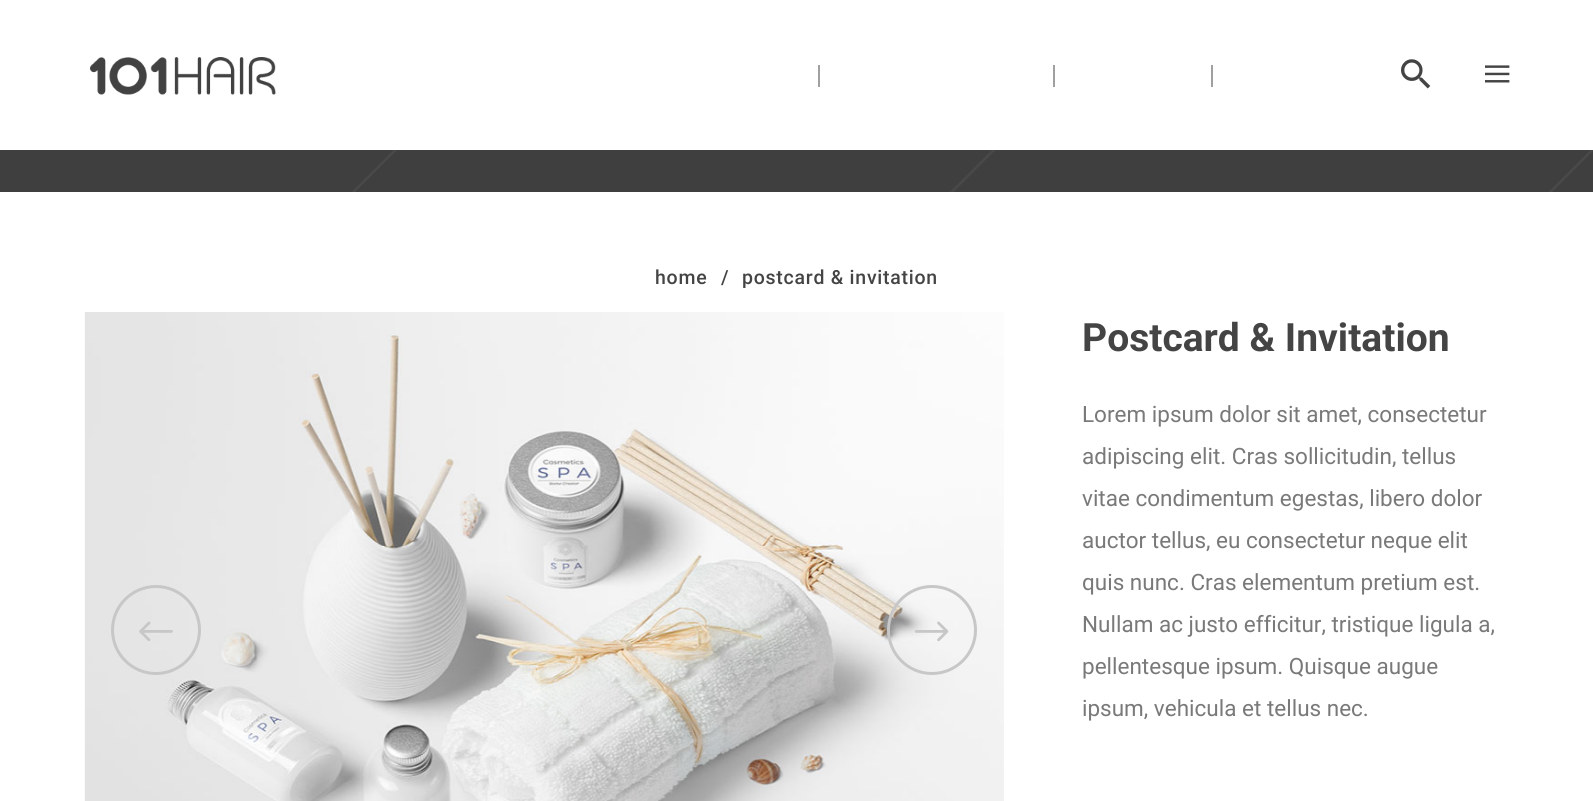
import math
import cairo

surface = cairo.ImageSurface(cairo.Format.RGB24, 1593, 801)
ctx = cairo.Context(surface)
options = cairo.FontOptions()
options.set_hint_metrics(cairo.HintMetrics.OFF)
options.set_hint_style(cairo.HintStyle.NONE)
ctx.set_font_options(options)
ctx.set_miter_limit(4)


def ink(r, g, b):
    ctx.set_source_rgb(r / 255, g / 255, b / 255)


def write(x, y, s, family, size, color, bold=False, italic=False):
    ctx.select_font_face(family, cairo.FontSlant.ITALIC if italic else cairo.FontSlant.NORMAL, cairo.FontWeight.BOLD if bold else cairo.FontWeight.NORMAL)
    ctx.set_font_size(size)
    ink(*color)
    ctx.move_to(x, y)
    ctx.show_text(s)


def write_spaced(x, y, s, letter, word):
    ctx.move_to(x, y)
    for ch in s:
        ctx.show_text(ch)
        ctx.rel_move_to(letter + word * (ch == ' '), 0)


def block(x, y, w, h, *color):
    ink(*color)
    ctx.rectangle(x, y, w, h)
    ctx.fill()


def paste(path, x, y, w, h):
    ctx.save()
    ctx.set_source_surface(cairo.ImageSurface.create_from_png(path), x, y)
    ctx.rectangle(x, y, w, h)
    ctx.fill()
    ctx.restore()


s1 = dict(family="Roboto", size=39, color=(68, 68, 68), bold=True)
s2 = dict(family="Roboto", size=22.5, color=(121, 121, 121))

ink(255, 255, 255)
ctx.paint()
paste("pic1.png", 90, 57, 186, 38)
block(818, 65, 2, 22, 160, 160, 160)
block(1053, 65, 2, 22, 160, 160, 160)
block(1211, 65, 2, 22, 160, 160, 160)
paste("pic2.png", 1401, 59, 30, 30)
paste("pic3.png", 1485, 65, 25, 18)
paste("pic4.png", 0, 150, 1593, 42)
ctx.select_font_face("Roboto Medium")
ctx.set_font_size(19.5)
ink(68, 68, 68)
write_spaced(655, 284, "home", 0.75, 0)
write_spaced(721, 284, "/", 0.75, 0)
write_spaced(742, 284, "postcard & invitation", 0.75, 0)
block(84, 312, 1, 489, 250, 250, 250)
paste("pic5.png", 85, 312, 919, 489)
ctx.arc(156, 630, 43.5, 0, 2 * math.pi)
ink(200, 199, 199)
ctx.set_line_width(3)
ctx.stroke()
paste("pic6.png", 139, 621, 34, 20)
ctx.arc(932, 630, 43.5, 0, 2 * math.pi)
ctx.stroke()
paste("pic7.png", 914, 621, 35, 21)
write(1082, 351, "Postcard & Invitation", **s1)
write(1082, 422, "Lorem ipsum dolor sit amet, consectetur", **s2)
write(1082, 464, "adipiscing elit. Cras sollicitudin, tellus", **s2)
write(1082, 506, "vitae condimentum egestas, libero dolor", **s2)
write(1082, 548, "auctor tellus, eu consectetur neque elit", **s2)
write(1082, 590, "quis nunc. Cras elementum pretium est.", **s2)
write(1082, 632, "Nullam ac justo efficitur, tristique ligula a,", **s2)
write(1082, 674, "pellentesque ipsum. Quisque augue", **s2)
write(1082, 716, "ipsum, vehicula et tellus nec.", **s2)
surface.write_to_png("screenshot.png")
